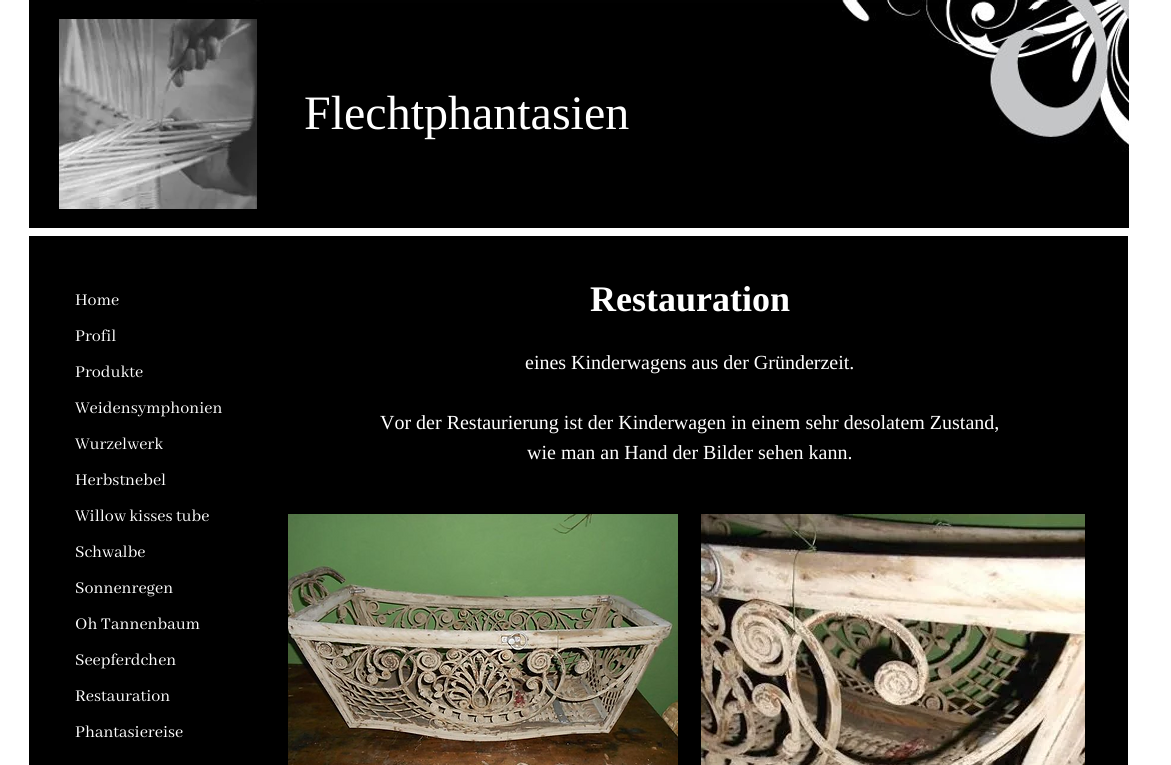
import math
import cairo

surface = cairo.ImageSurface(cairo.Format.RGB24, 1171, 765)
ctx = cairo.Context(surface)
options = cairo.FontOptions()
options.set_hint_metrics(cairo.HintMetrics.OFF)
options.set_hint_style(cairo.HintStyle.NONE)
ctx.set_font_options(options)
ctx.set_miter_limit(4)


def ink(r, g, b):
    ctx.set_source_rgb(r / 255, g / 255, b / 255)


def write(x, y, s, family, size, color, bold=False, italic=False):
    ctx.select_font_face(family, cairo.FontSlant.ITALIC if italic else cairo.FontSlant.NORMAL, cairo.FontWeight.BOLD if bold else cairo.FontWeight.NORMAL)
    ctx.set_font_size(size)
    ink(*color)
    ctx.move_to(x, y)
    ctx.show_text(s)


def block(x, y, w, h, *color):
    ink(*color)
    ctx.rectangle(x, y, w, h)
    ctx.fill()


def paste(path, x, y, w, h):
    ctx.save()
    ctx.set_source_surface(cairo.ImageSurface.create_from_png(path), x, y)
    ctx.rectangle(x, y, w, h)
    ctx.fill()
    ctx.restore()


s1 = dict(family="Liberation Serif", size=48, color=(255, 255, 255))
s2 = dict(family="Abhaya Libre", size=18, color=(255, 255, 255))
s3 = dict(family="Liberation Serif", size=36, color=(255, 255, 255), bold=True)
s4 = dict(family="Liberation Serif", size=20, color=(255, 255, 255))

ink(255, 255, 255)
ctx.paint()
paste("pic1.png", 29, 0, 1100, 228)
paste("pic2.png", 59, 19, 198, 190)
write(304, 129, "Flechtphantasien", **s1)
block(29, 236, 1099, 529, 0, 0, 0)
write(75, 305, "Home", **s2)
write(75, 341, "Profil", **s2)
write(75, 377, "Produkte", **s2)
write(75, 413, "Weidensymphonien", **s2)
write(75, 449, "Wurzelwerk", **s2)
write(75, 485, "Herbstnebel", **s2)
write(75, 521, "Willow kisses tube", **s2)
write(75, 557, "Schwalbe", **s2)
write(75, 593, "Sonnenregen", **s2)
write(75, 629, "Oh Tannenbaum", **s2)
write(75, 665, "Seepferdchen", **s2)
write(75, 701, "Restauration", **s2)
write(75, 737, "Phantasiereise", **s2)
write(590, 311, "Restauration", **s3)
write(525, 369, "eines Kinderwagens aus der Gründerzeit.", **s4)
write(380, 429, "Vor der Restaurierung ist der Kinderwagen in einem sehr desolatem Zustand,", **s4)
write(527, 459, "wie man an Hand der Bilder sehen kann.", **s4)
paste("pic3.png", 288, 514, 390, 251)
paste("pic4.png", 701, 514, 384, 251)
surface.write_to_png("screenshot.png")
